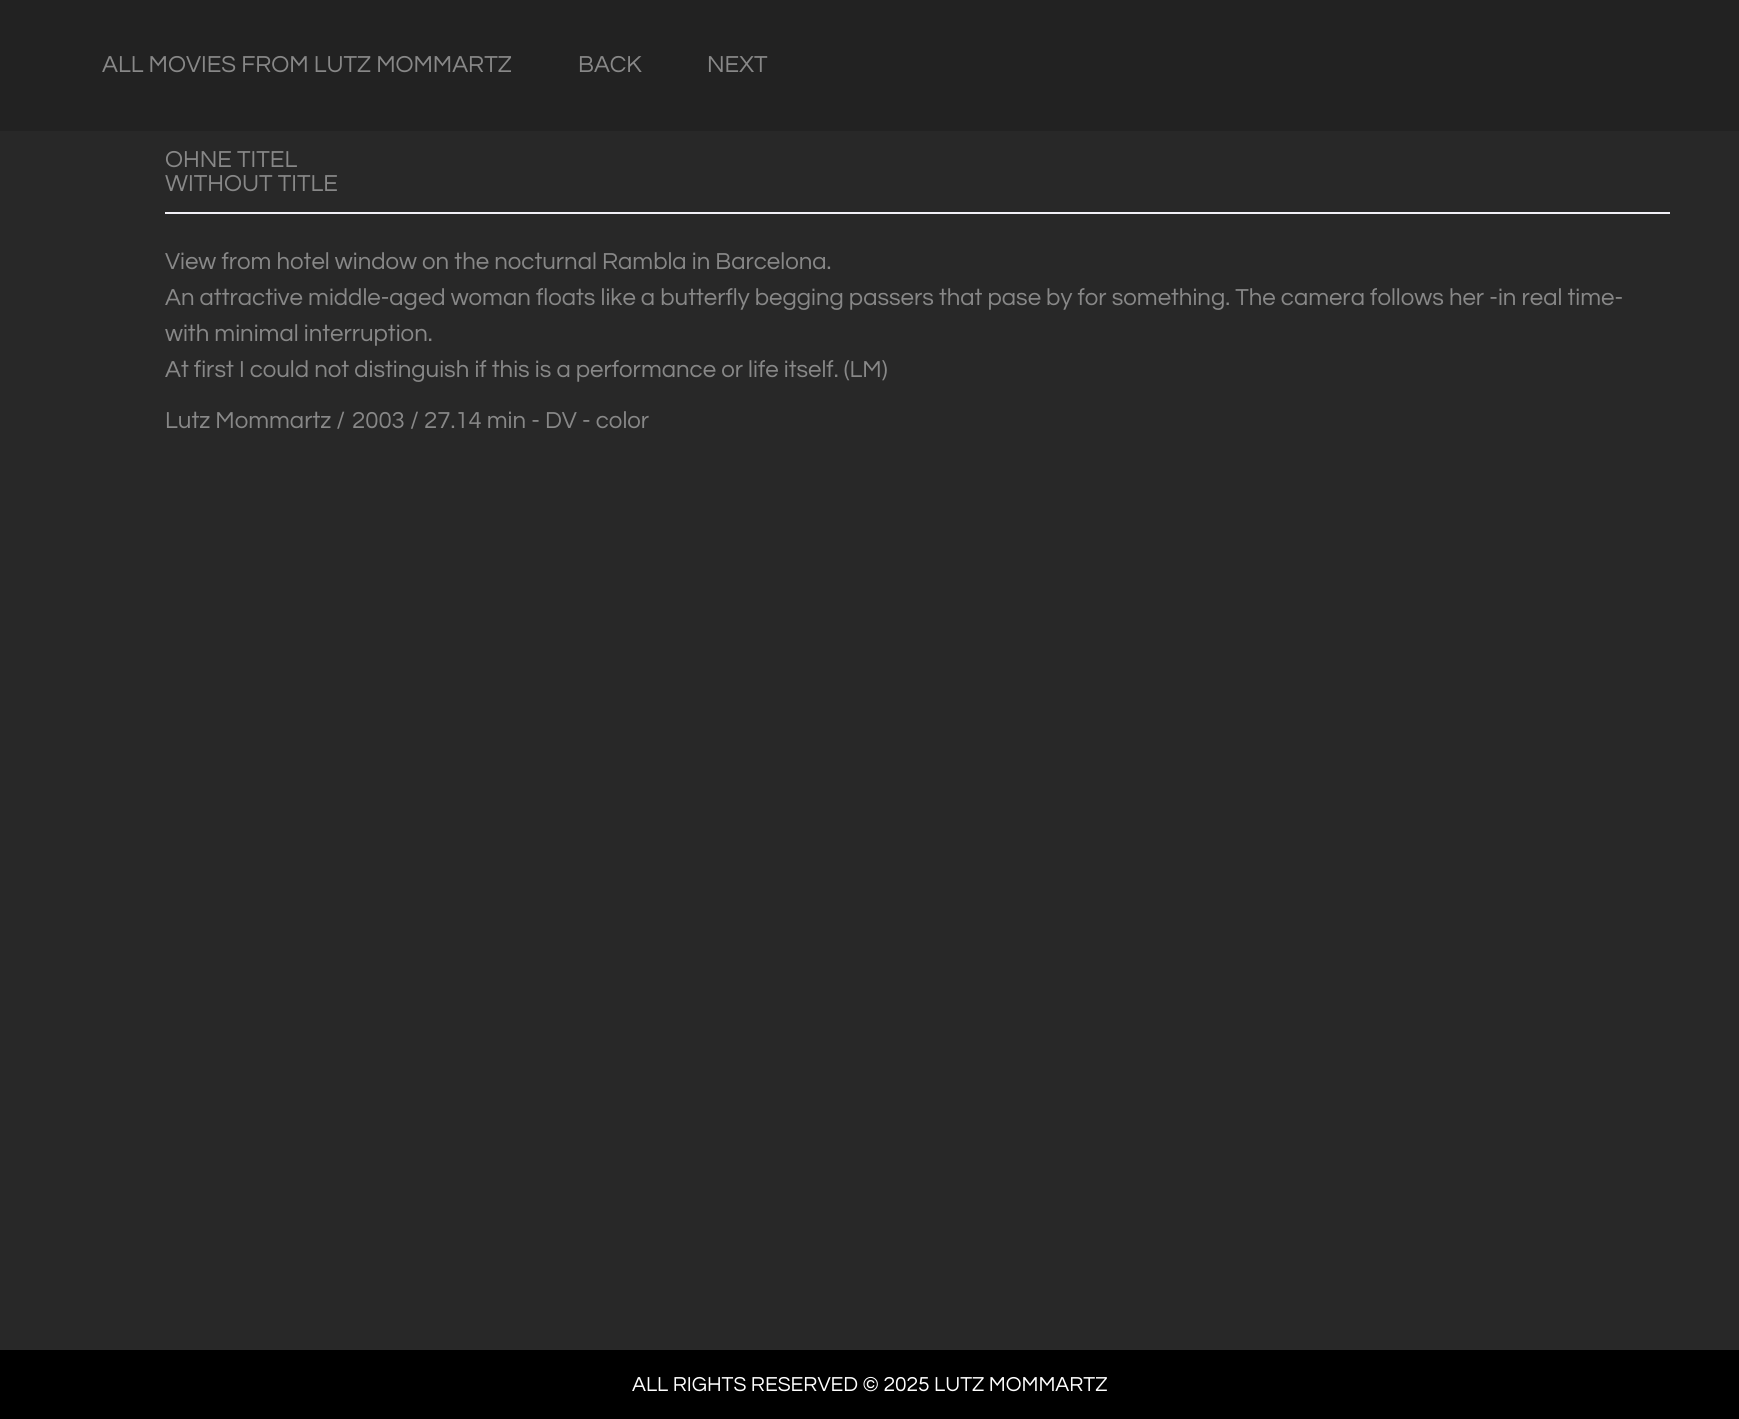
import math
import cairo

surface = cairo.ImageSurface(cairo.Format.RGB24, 1739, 1419)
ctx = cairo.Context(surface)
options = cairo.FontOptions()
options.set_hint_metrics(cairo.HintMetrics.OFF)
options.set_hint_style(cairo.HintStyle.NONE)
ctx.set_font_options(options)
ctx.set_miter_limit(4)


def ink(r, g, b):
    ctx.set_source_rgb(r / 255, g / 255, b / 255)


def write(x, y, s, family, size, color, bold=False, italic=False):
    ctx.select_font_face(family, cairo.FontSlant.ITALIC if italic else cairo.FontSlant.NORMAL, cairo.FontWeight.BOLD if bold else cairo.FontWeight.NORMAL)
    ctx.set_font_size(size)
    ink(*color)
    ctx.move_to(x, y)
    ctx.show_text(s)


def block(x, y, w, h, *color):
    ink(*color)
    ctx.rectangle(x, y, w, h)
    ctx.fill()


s1 = dict(family="Questrial", size=24, color=(136, 136, 136))
s2 = dict(family="Questrial", size=21, color=(255, 255, 255))

ink(0, 0, 0)
ctx.paint()
block(0, 0, 1739, 131, 34, 34, 34)
write(102, 72, "ALL MOVIES FROM LUTZ MOMMARTZ", **s1)
write(578, 72, "BACK", **s1)
write(707, 72, "NEXT", **s1)
block(0, 131, 1739, 1219, 40, 40, 40)
block(165, 212, 1505, 2, 241, 240, 246)
write(165, 167, "OHNE TITEL", **s1)
write(165, 191, "WITHOUT TITLE", **s1)
write(165, 269, "View from hotel window on the nocturnal Rambla in Barcelona.", **s1)
write(165, 305, "An attractive middle-aged woman floats like a butterfly begging passers that pase by for something. The camera follows her -in real time-", **s1)
write(165, 341, "with minimal interruption.", **s1)
write(165, 377, "At first I could not distinguish if this is a performance or life itself. (LM)", **s1)
write(165, 428, "Lutz Mommartz /", **s1)
write(352, 428, "2003 /", **s1)
write(424, 428, "27.14 min - DV - color", **s1)
write(632, 1391, "ALL RIGHTS RESERVED © 2025 LUTZ MOMMARTZ", **s2)
surface.write_to_png("screenshot.png")
